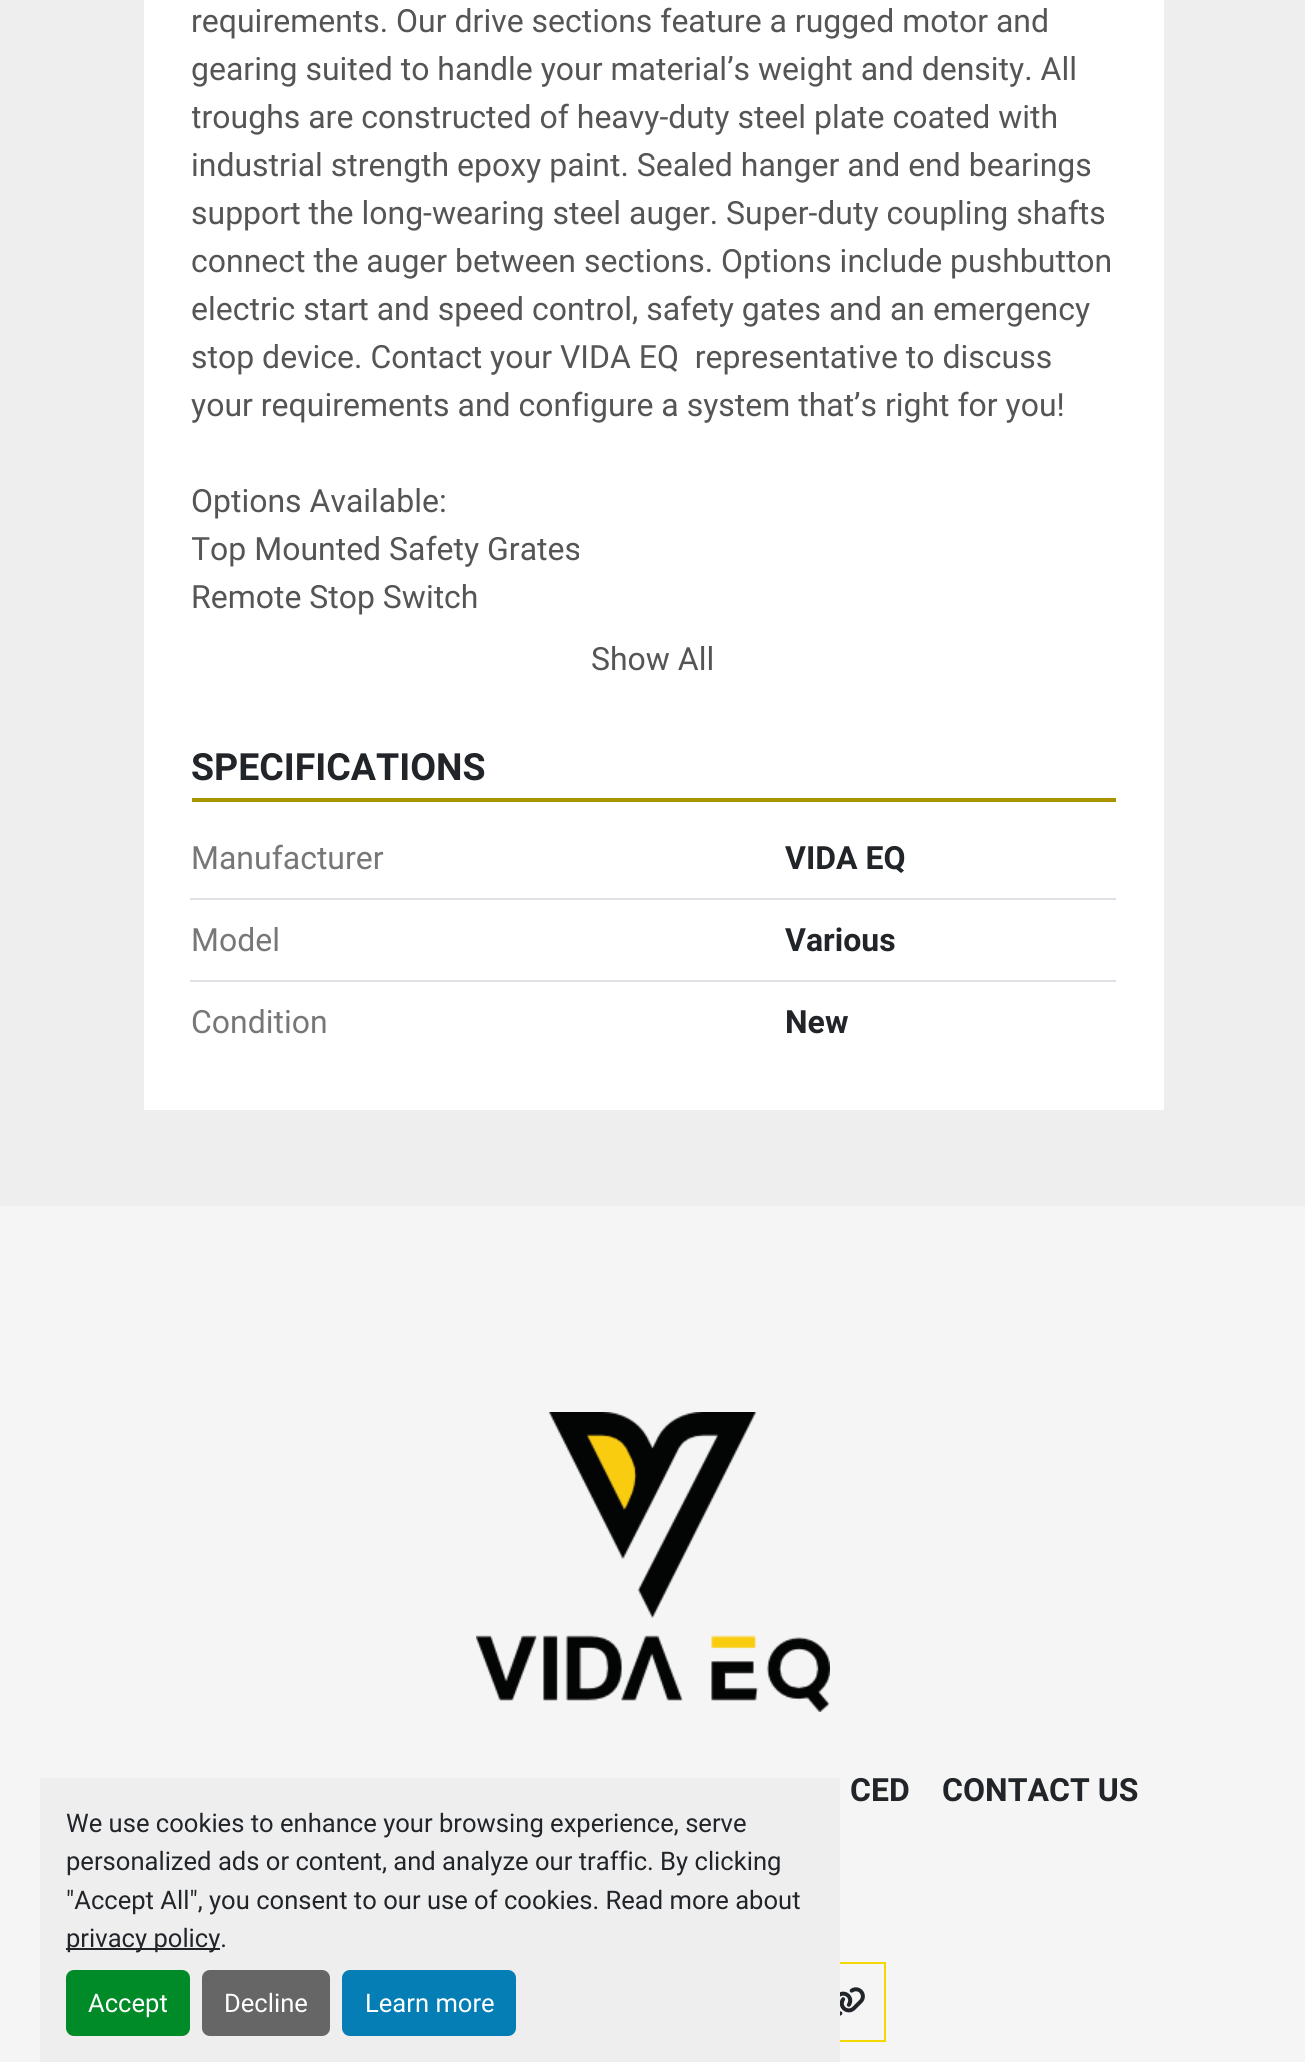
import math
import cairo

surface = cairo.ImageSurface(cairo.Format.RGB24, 1305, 2062)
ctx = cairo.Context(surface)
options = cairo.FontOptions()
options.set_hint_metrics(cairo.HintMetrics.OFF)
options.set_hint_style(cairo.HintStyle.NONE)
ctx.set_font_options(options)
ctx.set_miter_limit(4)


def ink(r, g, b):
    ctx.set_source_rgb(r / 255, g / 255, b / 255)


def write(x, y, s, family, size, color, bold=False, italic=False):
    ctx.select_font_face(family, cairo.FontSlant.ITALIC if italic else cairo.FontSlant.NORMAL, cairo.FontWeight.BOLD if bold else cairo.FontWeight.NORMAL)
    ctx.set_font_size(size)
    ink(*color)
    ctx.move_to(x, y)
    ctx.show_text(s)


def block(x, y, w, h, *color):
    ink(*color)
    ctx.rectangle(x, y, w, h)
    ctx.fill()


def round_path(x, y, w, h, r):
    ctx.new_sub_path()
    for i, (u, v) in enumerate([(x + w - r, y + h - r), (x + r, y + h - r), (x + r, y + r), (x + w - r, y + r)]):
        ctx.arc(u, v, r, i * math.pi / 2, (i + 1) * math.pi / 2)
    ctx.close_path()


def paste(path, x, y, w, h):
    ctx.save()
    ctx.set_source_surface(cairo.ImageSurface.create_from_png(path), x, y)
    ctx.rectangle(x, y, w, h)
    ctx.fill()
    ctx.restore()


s1 = dict(family="Roboto", size=32, color=(85, 85, 85))
s2 = dict(family="Roboto", size=37.5, color=(33, 37, 41), bold=True)
s3 = dict(family="Roboto", size=32, color=(119, 119, 119))
s4 = dict(family="Roboto", size=32, color=(33, 37, 41), bold=True)
s5 = dict(family="Roboto", size=25.6, color=(33, 37, 41))
s6 = dict(family="Roboto", size=25.6, color=(255, 255, 255))

ink(238, 238, 238)
ctx.paint()
block(144, 0, 1020, 1110, 255, 255, 255)
write(191, 32, "requirements. Our drive sections feature a rugged motor and", **s1)
write(191, 80, "gearing suited to handle your material’s weight and density. All", **s1)
ctx.save()
ctx.rectangle(192, 0, 924, 622)
ctx.clip()
write(191, 128, "troughs are constructed of heavy-duty steel plate coated with", **s1)
ctx.restore()
write(191, 176, "industrial strength epoxy paint. Sealed hanger and end bearings", **s1)
write(191, 224, "support the long-wearing steel auger. Super-duty coupling shafts", **s1)
write(191, 272, "connect the auger between sections. Options include pushbutton", **s1)
write(191, 320, "electric start and speed control, safety gates and an emergency", **s1)
write(191, 368, "stop device. Contact your VIDA EQ  representative to discuss", **s1)
write(191, 416, "your requirements and configure a system that’s right for you!", **s1)
write(191, 512, "Options Available:", **s1)
ctx.save()
ctx.rectangle(192, 0, 924, 622)
ctx.clip()
write(191, 560, "Top Mounted Safety Grates", **s1)
ctx.restore()
write(191, 608, "Remote Stop Switch", **s1)
write(591, 670, "Show All", **s1)
block(192, 798, 924, 4, 168, 148, 1)
write(191, 780, "SPECIFICATIONS", **s2)
block(190, 898, 926, 2, 222, 226, 230)
write(191, 869, "Manufacturer", **s3)
write(785, 869, "VIDA EQ", **s4)
block(190, 980, 926, 2, 222, 226, 230)
write(191, 951, "Model", **s3)
write(785, 951, "Various", **s4)
write(191, 1033, "Condition", **s3)
write(785, 1033, "New", **s4)
block(0, 1206, 1305, 856, 245, 245, 245)
paste("pic1.png", 476, 1412, 354, 300)
write(850, 1801, "CED", **s4)
write(942, 1801, "CONTACT US", **s4)
ctx.rectangle(807, 1963, 78, 78)
ink(244, 215, 1)
ctx.stroke()
paste("pic2.png", 840, 1987, 25, 29)
block(40, 1778, 800, 284, 238, 238, 238)
write(66, 1832, "We use cookies to enhance your browsing experience, serve", **s5)
write(66, 1870, "personalized ads or content, and analyze our traffic. By clicking", **s5)
write(66, 1909, "\"Accept All\", you consent to our use of cookies. Read more about", **s5)
block(66, 1948, 154, 2, 33, 37, 41)
write(66, 1947, "privacy policy.", **s5)
ink(0, 138, 40)
round_path(66, 1970, 124, 66, 8)
ctx.fill()
write(88, 2012, "Accept", **s6)
ink(102, 102, 102)
round_path(202, 1970, 128, 66, 8)
ctx.fill()
write(224, 2012, "Decline", **s6)
ink(5, 126, 182)
round_path(342, 1970, 174, 66, 8)
ctx.fill()
write(365, 2012, "Learn more", **s6)
surface.write_to_png("screenshot.png")
